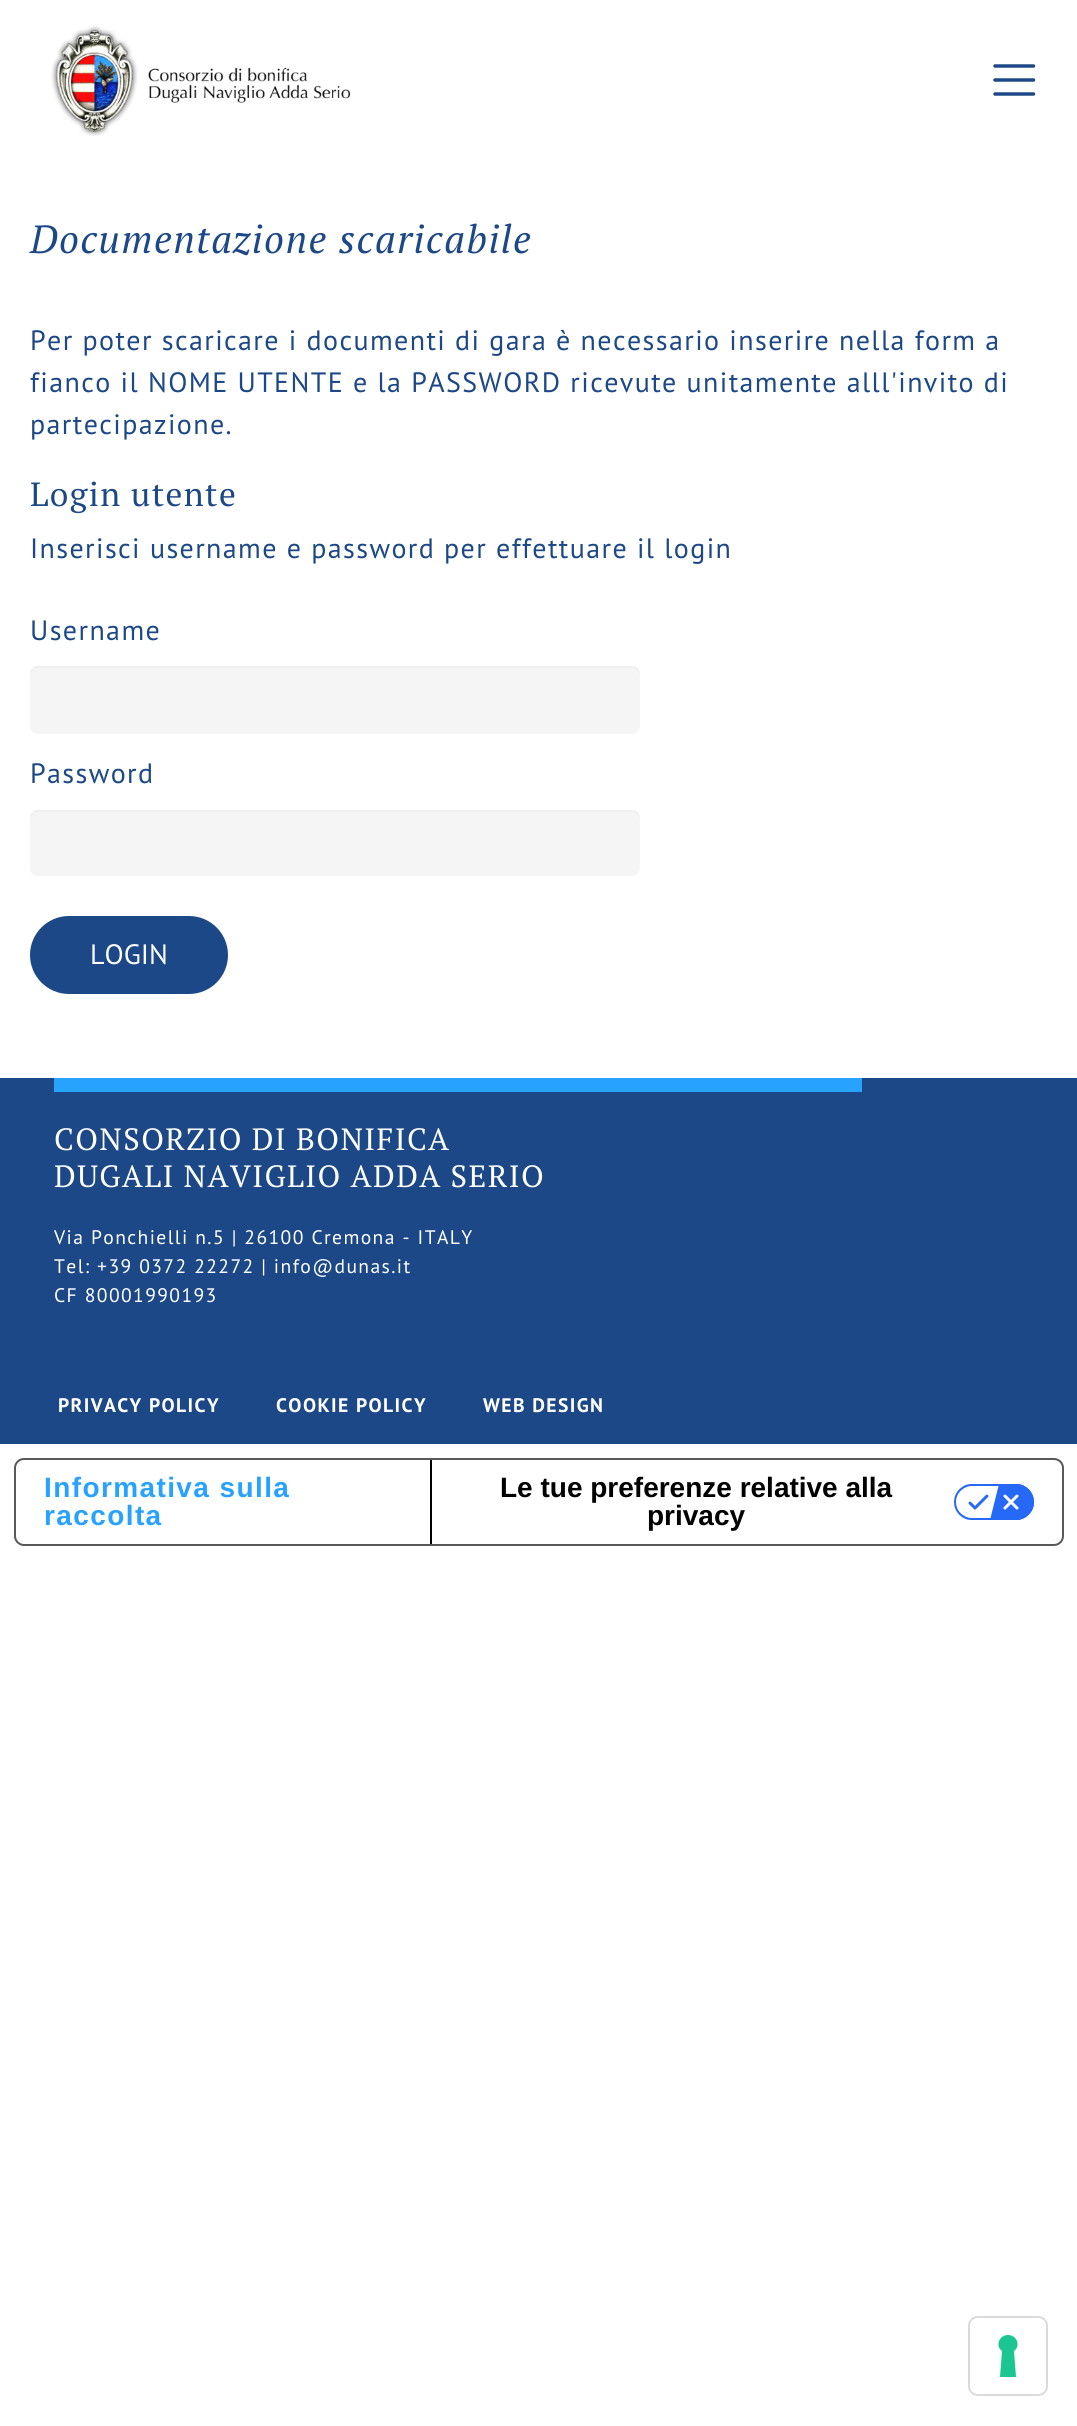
import math
import cairo

surface = cairo.ImageSurface(cairo.Format.RGB24, 1077, 2426)
ctx = cairo.Context(surface)
options = cairo.FontOptions()
options.set_hint_metrics(cairo.HintMetrics.OFF)
options.set_hint_style(cairo.HintStyle.NONE)
ctx.set_font_options(options)
ctx.set_miter_limit(4)


def ink(r, g, b):
    ctx.set_source_rgb(r / 255, g / 255, b / 255)


def write(x, y, s, family, size, color, bold=False, italic=False):
    ctx.select_font_face(family, cairo.FontSlant.ITALIC if italic else cairo.FontSlant.NORMAL, cairo.FontWeight.BOLD if bold else cairo.FontWeight.NORMAL)
    ctx.set_font_size(size)
    ink(*color)
    ctx.move_to(x, y)
    ctx.show_text(s)


def write_spaced(x, y, s, letter, word):
    ctx.move_to(x, y)
    for ch in s:
        ctx.show_text(ch)
        ctx.rel_move_to(letter + word * (ch == ' '), 0)


def block(x, y, w, h, *color):
    ink(*color)
    ctx.rectangle(x, y, w, h)
    ctx.fill()


def round_path(x, y, w, h, r):
    ctx.new_sub_path()
    for i, (u, v) in enumerate([(x + w - r, y + h - r), (x + r, y + h - r), (x + r, y + r), (x + w - r, y + r)]):
        ctx.arc(u, v, r, i * math.pi / 2, (i + 1) * math.pi / 2)
    ctx.close_path()


def paste(path, x, y, w, h):
    ctx.save()
    ctx.set_source_surface(cairo.ImageSurface.create_from_png(path), x, y)
    ctx.rectangle(x, y, w, h)
    ctx.fill()
    ctx.restore()


s1 = dict(family="PT Sans", size=28, color=(255, 255, 255))
s2 = dict(family="Liberation Sans", size=28, color=(0, 0, 0), bold=True)

ink(255, 255, 255)
ctx.paint()
paste("pic1.png", 51, 26, 299, 110)
ctx.new_path()
ctx.move_to(995, 66)
ctx.line_to(1033.5, 66)
ctx.move_to(995, 80)
ctx.line_to(1033.5, 80)
ctx.move_to(995, 94)
ctx.line_to(1033.5, 94)
ink(28, 72, 135)
ctx.set_line_width(3.5)
ctx.set_line_cap(cairo.LineCap.ROUND)
ctx.stroke()
ctx.select_font_face("PT Serif", cairo.FontSlant.ITALIC)
ctx.set_font_size(39.25)
write_spaced(30, 253, "Documentazione scaricabile", 1.4, 0)
ctx.select_font_face("PT Sans")
ctx.set_font_size(28)
write_spaced(30, 350, "Per poter scaricare i documenti di gara è necessario inserire nella form a", 1.4, 0)
write_spaced(30, 392, "fianco il NOME UTENTE e la PASSWORD ricevute unitamente alll'invito di", 1.4, 0)
write_spaced(30, 434, "partecipazione.", 1.4, 0)
ctx.select_font_face("PT Serif")
ctx.set_font_size(33.5)
write_spaced(30, 506, "Login utente", 1.4, 0)
ctx.select_font_face("PT Sans")
ctx.set_font_size(28)
write_spaced(30, 558, "Inserisci username e password per effettuare il login", 1.4, 0)
write_spaced(30, 640, "Username", 1.4, 0)
ink(245, 245, 245)
round_path(30, 666, 610, 68, 8)
ctx.fill()
ink(238, 238, 238)
ctx.new_path()
ctx.move_to(38, 668)
ctx.line_to(632, 668)
ctx.curve_to(636, 668, 640, 672, 640, 676)
ctx.line_to(640, 674)
ctx.curve_to(640, 670, 636, 666, 632, 666)
ctx.line_to(38, 666)
ctx.curve_to(34, 666, 30, 670, 30, 674)
ctx.line_to(30, 676)
ctx.curve_to(30, 672, 34, 668, 38, 668)
ctx.close_path()
ctx.fill()
ink(28, 72, 135)
write_spaced(30, 783, "Password", 1.4, 0)
ink(245, 245, 245)
round_path(30, 810, 610, 66, 8)
ctx.fill()
ink(238, 238, 238)
ctx.new_path()
ctx.move_to(38, 812)
ctx.line_to(632, 812)
ctx.curve_to(636, 812, 640, 816, 640, 820)
ctx.line_to(640, 818)
ctx.curve_to(640, 814, 636, 810, 632, 810)
ctx.line_to(38, 810)
ctx.curve_to(34, 810, 30, 814, 30, 818)
ctx.line_to(30, 820)
ctx.curve_to(30, 816, 34, 812, 38, 812)
ctx.close_path()
ctx.fill()
ink(28, 72, 135)
round_path(32, 918, 194, 74, 37)
ctx.fill_preserve()
ctx.set_line_width(4)
ctx.set_line_cap(cairo.LineCap.BUTT)
ctx.stroke()
write(90, 964, "LOGIN", **s1)
block(0, 1078, 1077, 366, 28, 72, 135)
block(54, 1078, 808, 14, 39, 162, 255)
ctx.select_font_face("PT Serif")
ctx.set_font_size(30.75)
ink(255, 255, 255)
write_spaced(54, 1150, "CONSORZIO DI BONIFICA", 1.4, 0)
write_spaced(54, 1187, "DUGALI NAVIGLIO ADDA SERIO", 1.4, 0)
ctx.select_font_face("PT Sans")
ctx.set_font_size(19.6)
write_spaced(54, 1244, "Via Ponchielli n.5 | 26100 Cremona - ITALY", 1.4, 0)
write_spaced(54, 1273, "Tel: +39 0372 22272 | info@dunas.it", 1.4, 0)
write_spaced(54, 1302, "CF 80001990193", 1.4, 0)
ctx.select_font_face("PT Sans", cairo.FontSlant.NORMAL, cairo.FontWeight.BOLD)
write_spaced(58, 1412, "PRIVACY POLICY", 1.4, 0)
write_spaced(276, 1412, "COOKIE POLICY", 1.4, 0)
write_spaced(483, 1412, "WEB DESIGN", 1.4, 0)
round_path(15, 1459, 1048, 86, 9)
ink(89, 89, 89)
ctx.set_line_width(2)
ctx.stroke()
ctx.select_font_face("Liberation Sans", cairo.FontSlant.NORMAL, cairo.FontWeight.BOLD)
ctx.set_font_size(28)
ink(39, 162, 255)
write_spaced(44, 1497, "Informativa sulla", 1.4, 0)
write_spaced(44, 1525, "raccolta", 1.4, 0)
block(430, 1460, 2, 84, 0, 0, 0)
write(500, 1497, "Le tue preferenze relative alla", **s2)
paste("pic2.png", 954, 1484, 80, 36)
write(647, 1525, "privacy", **s2)
round_path(969, 2317, 78, 78, 9)
ink(217, 217, 217)
ctx.stroke()
ink(255, 255, 255)
round_path(970, 2318, 76, 76, 8)
ctx.fill()
ink(28, 198, 145)
ctx.set_fill_rule(cairo.FillRule.EVEN_ODD)
ctx.new_path()
ctx.move_to(1008, 2335)
ctx.curve_to(1017, 2335, 1021, 2346, 1014, 2351)
ctx.line_to(1016, 2377)
ctx.line_to(1000, 2377)
ctx.line_to(1002, 2351)
ctx.curve_to(995, 2346, 999, 2335, 1008, 2335)
ctx.close_path()
ctx.fill()
surface.write_to_png("screenshot.png")
